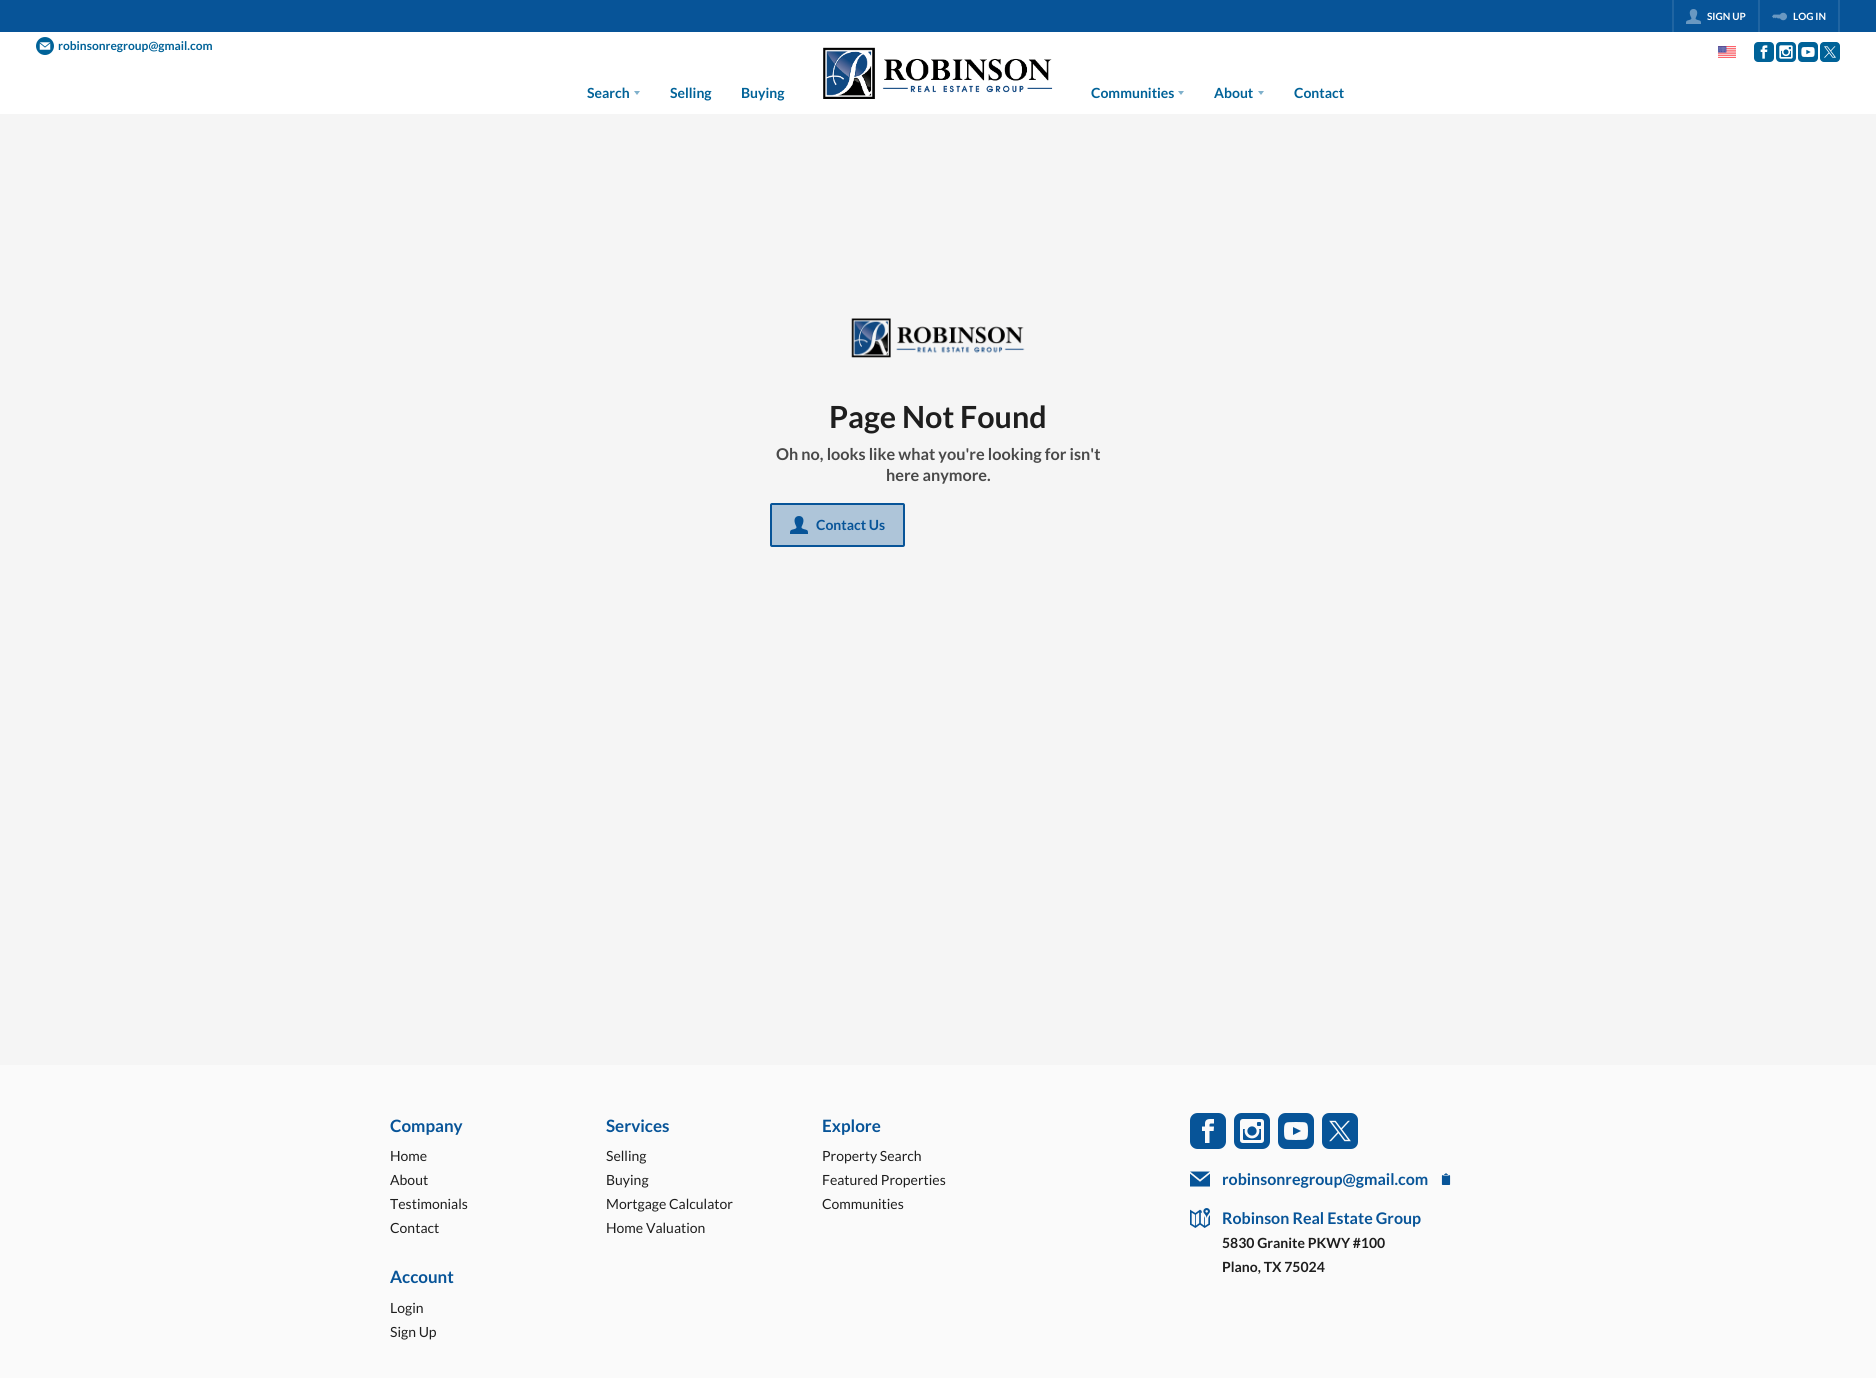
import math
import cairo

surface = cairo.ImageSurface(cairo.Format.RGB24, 1876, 1378)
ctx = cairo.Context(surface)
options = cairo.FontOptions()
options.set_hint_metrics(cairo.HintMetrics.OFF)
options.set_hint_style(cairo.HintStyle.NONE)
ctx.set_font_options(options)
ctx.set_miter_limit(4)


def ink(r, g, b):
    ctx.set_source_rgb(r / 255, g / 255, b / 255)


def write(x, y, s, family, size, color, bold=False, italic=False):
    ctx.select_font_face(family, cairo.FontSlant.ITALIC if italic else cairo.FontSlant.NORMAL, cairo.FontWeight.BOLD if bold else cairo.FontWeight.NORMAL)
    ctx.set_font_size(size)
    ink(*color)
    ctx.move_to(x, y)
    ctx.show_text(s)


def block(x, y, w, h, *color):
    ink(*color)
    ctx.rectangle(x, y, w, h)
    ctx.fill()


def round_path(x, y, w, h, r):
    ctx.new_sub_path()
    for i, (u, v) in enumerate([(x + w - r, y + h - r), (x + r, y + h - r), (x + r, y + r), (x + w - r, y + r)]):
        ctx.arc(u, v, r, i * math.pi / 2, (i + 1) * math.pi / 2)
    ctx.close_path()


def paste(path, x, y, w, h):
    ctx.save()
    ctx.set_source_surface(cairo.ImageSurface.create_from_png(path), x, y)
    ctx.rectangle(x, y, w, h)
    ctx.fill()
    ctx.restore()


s1 = dict(family="Lato", size=10, color=(255, 255, 255), bold=True)
s2 = dict(family="Lato", size=12, color=(0, 98, 152), bold=True)
s3 = dict(family="Lato", size=14, color=(0, 98, 152), bold=True)
s4 = dict(family="Lato", size=30.5, color=(30, 30, 30), bold=True)
s5 = dict(family="Lato", size=16.25, color=(73, 73, 73), bold=True)
s6 = dict(family="Lato", size=14, color=(7, 84, 152), bold=True)
s7 = dict(family="Lato", size=17, color=(7, 84, 152), bold=True)
s8 = dict(family="Lato", size=14, color=(30, 30, 30))
s9 = dict(family="Lato", size=16, color=(7, 84, 152), bold=True)
s10 = dict(family="Lato", size=14, color=(30, 30, 30), bold=True)

ink(250, 250, 250)
ctx.paint()
block(0, 0, 1876, 32, 7, 84, 152)
block(1838, 0, 2, 32, 32, 101, 162)
block(1672, 0, 2, 32, 32, 101, 162)
paste("pic1.png", 1686, 9, 15, 15)
write(1707, 20, "SIGN UP", **s1)
block(1758, 0, 2, 32, 32, 101, 162)
paste("pic2.png", 1772, 12, 15, 9)
write(1793, 20, "LOG IN", **s1)
block(0, 32, 1876, 82, 255, 255, 255)
paste("pic3.png", 36, 37, 18, 18)
write(58, 50, "robinsonregroup@gmail.com", **s2)
write(587, 98, "Search", **s3)
ink(128, 177, 204)
ctx.new_path()
ctx.move_to(634, 91)
ctx.line_to(640, 91)
ctx.line_to(637, 95)
ctx.close_path()
ctx.fill()
write(670, 98, "Selling", **s3)
write(741, 98, "Buying", **s3)
paste("pic4.png", 823, 47, 230, 52)
paste("pic5.png", 1718, 46, 18, 12)
paste("pic6.png", 1754, 42, 20, 20)
paste("pic7.png", 1776, 42, 20, 20)
paste("pic8.png", 1798, 42, 20, 20)
paste("pic9.png", 1820, 42, 20, 20)
write(1091, 98, "Communities", **s3)
ink(128, 177, 204)
ctx.new_path()
ctx.move_to(1178, 91)
ctx.line_to(1184, 91)
ctx.line_to(1181, 95)
ctx.close_path()
ctx.fill()
write(1214, 98, "About", **s3)
ink(128, 177, 204)
ctx.new_path()
ctx.move_to(1258, 91)
ctx.line_to(1264, 91)
ctx.line_to(1261, 95)
ctx.close_path()
ctx.fill()
write(1294, 98, "Contact", **s3)
block(0, 114, 1876, 951, 245, 245, 245)
paste("pic10.png", 851, 318, 174, 40)
write(829, 428, "Page Not Found", **s4)
write(776, 460, "Oh no, looks like what you're looking for isn't", **s5)
write(886, 481, "here anymore.", **s5)
ink(174, 197, 217)
round_path(771, 504, 133, 42, 1)
ctx.fill_preserve()
ink(7, 84, 152)
ctx.stroke()
paste("pic11.png", 790, 516, 18, 18)
write(816, 530, "Contact Us", **s6)
write(390, 1132, "Company", **s7)
write(390, 1161, "Home", **s8)
write(390, 1185, "About", **s8)
write(390, 1209, "Testimonials", **s8)
write(390, 1233, "Contact", **s8)
write(390, 1283, "Account", **s7)
write(390, 1313, "Login", **s8)
write(390, 1337, "Sign Up", **s8)
write(606, 1132, "Services", **s7)
write(606, 1161, "Selling", **s8)
write(606, 1185, "Buying", **s8)
write(606, 1209, "Mortgage Calculator", **s8)
write(606, 1233, "Home Valuation", **s8)
write(822, 1132, "Explore", **s7)
write(822, 1161, "Property Search", **s8)
write(822, 1185, "Featured Properties", **s8)
write(822, 1209, "Communities", **s8)
paste("pic12.png", 1190, 1113, 36, 36)
paste("pic13.png", 1234, 1113, 36, 36)
paste("pic14.png", 1278, 1113, 36, 36)
paste("pic15.png", 1322, 1113, 36, 36)
paste("pic16.png", 1190, 1171, 20, 16)
write(1222, 1185, "robinsonregroup@gmail.com", **s9)
paste("pic17.png", 1441, 1173, 10, 12)
paste("pic18.png", 1190, 1208, 20, 20)
write(1222, 1224, "Robinson Real Estate Group", **s9)
write(1222, 1248, "5830 Granite PKWY #100", **s10)
write(1222, 1272, "Plano, TX 75024", **s10)
surface.write_to_png("screenshot.png")
